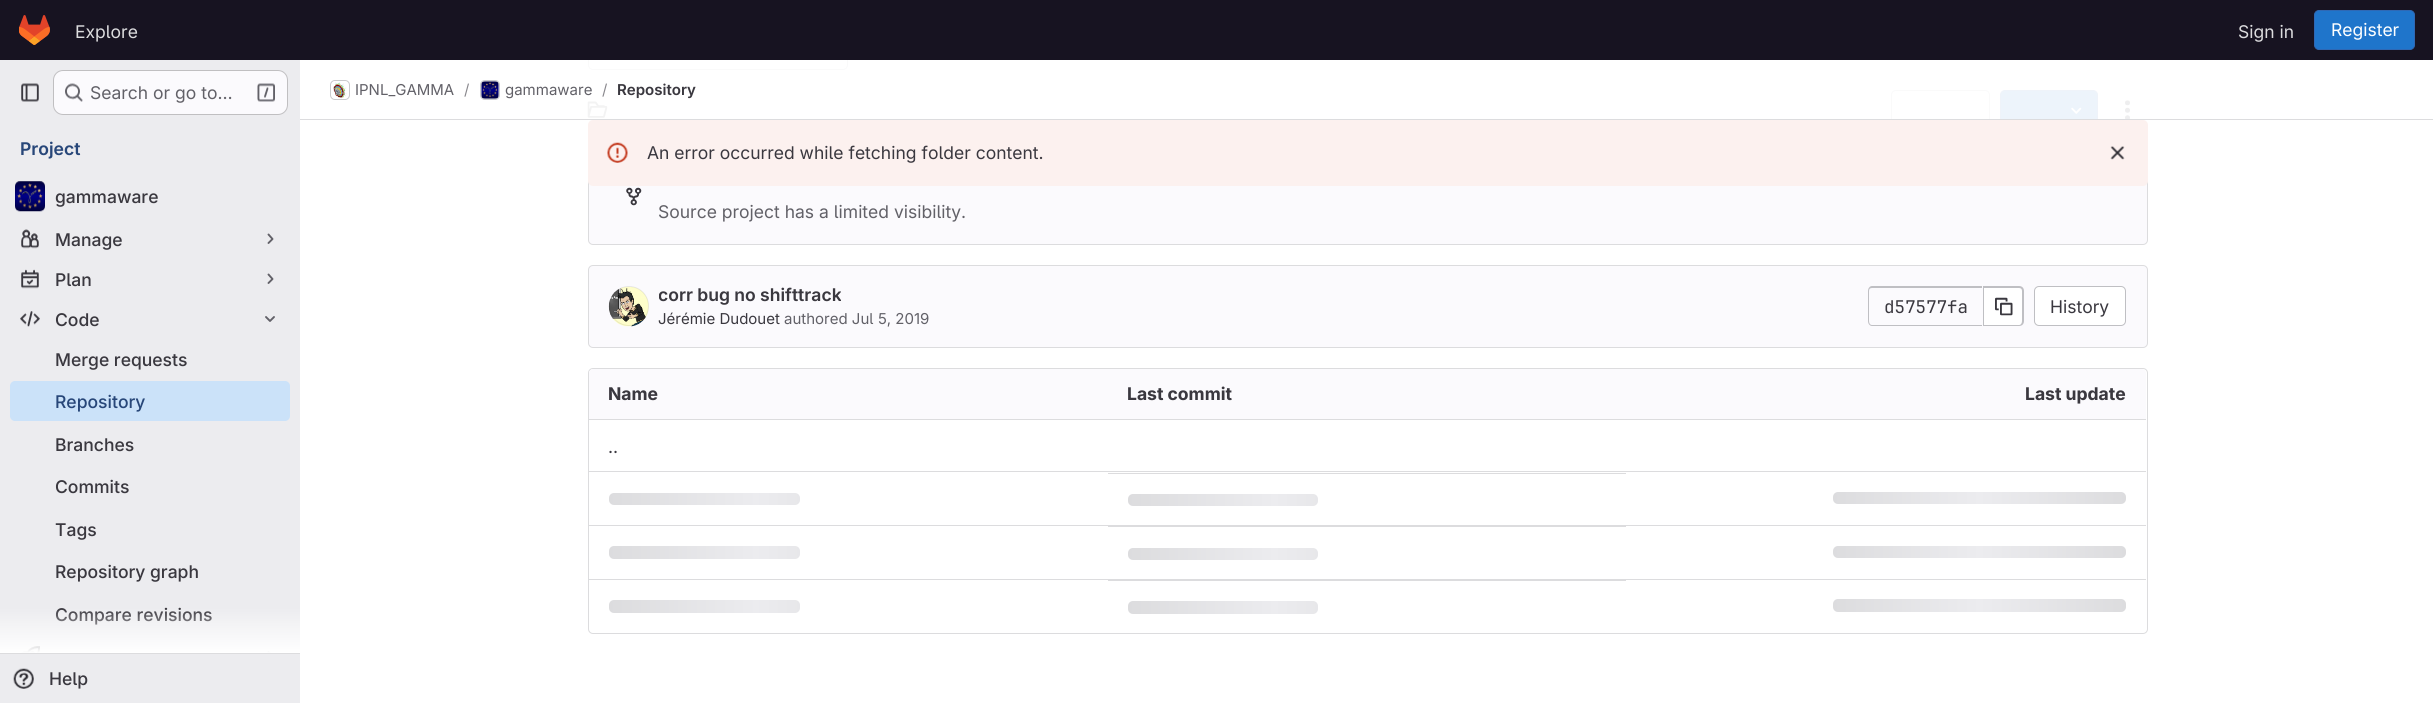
import math
import cairo

surface = cairo.ImageSurface(cairo.Format.RGB24, 2433, 703)
ctx = cairo.Context(surface)
options = cairo.FontOptions()
options.set_hint_metrics(cairo.HintMetrics.OFF)
options.set_hint_style(cairo.HintStyle.NONE)
ctx.set_font_options(options)
ctx.set_miter_limit(4)


def ink(r, g, b):
    ctx.set_source_rgb(r / 255, g / 255, b / 255)


def write(x, y, s, family, size, color, bold=False, italic=False):
    ctx.select_font_face(family, cairo.FontSlant.ITALIC if italic else cairo.FontSlant.NORMAL, cairo.FontWeight.BOLD if bold else cairo.FontWeight.NORMAL)
    ctx.set_font_size(size)
    ink(*color)
    ctx.move_to(x, y)
    ctx.show_text(s)


def block(x, y, w, h, *color):
    ink(*color)
    ctx.rectangle(x, y, w, h)
    ctx.fill()


def round_path(x, y, w, h, r):
    ctx.new_sub_path()
    for i, (u, v) in enumerate([(x + w - r, y + h - r), (x + r, y + h - r), (x + r, y + r), (x + w - r, y + r)]):
        ctx.arc(u, v, r, i * math.pi / 2, (i + 1) * math.pi / 2)
    ctx.close_path()


def paste(path, x, y, w, h):
    ctx.save()
    ctx.set_source_surface(cairo.ImageSurface.create_from_png(path), x, y)
    ctx.rectangle(x, y, w, h)
    ctx.fill()
    ctx.restore()


s1 = dict(family="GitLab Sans", size=17.5, color=(220, 220, 222))
s2 = dict(family="GitLab Sans", size=17.5, color=(255, 255, 255))
s3 = dict(family="GitLab Sans", size=17.5, color=(98, 97, 104))
s4 = dict(family="GitLab Sans SemiBold", size=17.5, color=(40, 71, 121))
s5 = dict(family="GitLab Sans Medium", size=17.5, color=(58, 56, 63))
s6 = dict(family="GitLab Sans Medium", size=17.5, color=(40, 71, 121))
s7 = dict(family="GitLab Sans", size=15, color=(98, 97, 104))
s8 = dict(family="GitLab Sans", size=15, color=(137, 136, 141))
s9 = dict(family="GitLab Sans SemiBold", size=15, color=(58, 56, 63))
s10 = dict(family="GitLab Sans", size=17.5, color=(58, 56, 63))
s11 = dict(family="GitLab Sans SemiBold", size=17.5, color=(58, 56, 63))
s12 = dict(family="GitLab Sans", size=15, color=(58, 56, 63))
s13 = dict(family="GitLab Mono", size=17.5, color=(58, 56, 63))
s14 = dict(family="GitLab Sans", size=17.5, color=(58, 56, 63), bold=True)

ink(255, 255, 255)
ctx.paint()
round_path(588.5, 30.5, 259, 39, 4.5)
ink(191, 191, 195)
ctx.set_line_width(1)
ctx.stroke()
block(0, 0, 2433, 60, 23, 19, 33)
paste("pic1.png", 19, 15, 31, 30)
write(75, 38, "Explore", **s1)
write(2238, 38, "Sign in", **s1)
ink(31, 117, 203)
round_path(2314.5, 10.5, 100, 39, 4.5)
ctx.fill_preserve()
ink(47, 104, 180)
ctx.stroke()
write(2331, 36, "Register", **s2)
block(0, 60, 300, 643, 236, 236, 239)
paste("pic2.png", 21, 83, 18, 19)
ink(251, 250, 253)
round_path(53, 70, 235, 45, 10)
ctx.fill()
round_path(53.5, 70.5, 234, 44, 9.5)
ctx.set_source_rgba(0.02, 0.02, 0.024, 0.24)
ctx.stroke()
paste("pic3.png", 65, 83, 18, 19)
write(90, 99, "Search or go to…", **s3)
paste("pic4.png", 257, 83, 18, 19)
write(20, 155, "Project", **s4)
block(0, 653, 300, 1, 220, 220, 222)
paste("pic5.png", 15, 181, 30, 31)
round_path(15.5, 181.5, 29, 29, 4.5)
ctx.set_source_rgba(0.02, 0.02, 0.024, 0.08)
ctx.stroke()
write(55, 203, "gammaware", **s5)
paste("pic6.png", 21, 229, 18, 20)
write(55, 246, "Manage", **s5)
ctx.new_path()
ctx.move_to(268.5, 234.5)
ctx.line_to(272.5, 239)
ctx.line_to(268.5, 243)
ink(98, 97, 104)
ctx.set_line_width(1.9)
ctx.set_line_cap(cairo.LineCap.ROUND)
ctx.set_line_join(cairo.LineJoin.ROUND)
ctx.stroke()
paste("pic7.png", 21, 269, 18, 20)
write(55, 286, "Plan", **s5)
ctx.new_path()
ctx.move_to(268.5, 274.5)
ctx.line_to(272.5, 279)
ctx.line_to(268.5, 283)
ink(98, 97, 104)
ctx.stroke()
paste("pic8.png", 20, 311, 20, 16)
write(55, 326, "Code", **s5)
ctx.new_path()
ctx.move_to(274, 317)
ctx.line_to(270, 321)
ctx.line_to(266, 317)
ink(98, 97, 104)
ctx.stroke()
write(55, 366, "Merge requests", **s5)
ink(203, 226, 249)
round_path(10, 381, 280, 40, 5)
ctx.fill()
write(55, 408, "Repository", **s6)
write(55, 451, "Branches", **s5)
write(55, 493, "Commits", **s5)
write(55, 536, "Tags", **s5)
write(55, 578, "Repository graph", **s5)
write(55, 621, "Compare revisions", **s5)
paste("pic9.png", 21, 646, 19, 7)
ctx.save()
ctx.rectangle(260, 646, 20, 7)
ctx.clip()
ctx.new_path()
ctx.move_to(268.5, 652)
ctx.line_to(272.5, 656)
ctx.line_to(268.5, 660.5)
ink(98, 97, 104)
ctx.stroke()
ctx.restore()
gradient = cairo.LinearGradient(150, 608, 150, 653)
gradient.add_color_stop_rgba(0, 1, 1, 1, 0)
gradient.add_color_stop_rgba(1, 1, 1, 1, 1)
ctx.set_source(gradient)
ctx.rectangle(0, 609, 300, 44)
ctx.fill()
paste("pic10.png", 13, 668, 21, 21)
write(49, 685, "Help", **s5)
paste("pic15.png", 587, 101, 21, 17)
round_path(1891.5, 90.5, 98, 39, 4.5)
ink(191, 191, 195)
ctx.set_line_width(1)
ctx.set_line_cap(cairo.LineCap.BUTT)
ctx.set_line_join(cairo.LineJoin.MITER)
ctx.stroke()
ink(31, 117, 203)
round_path(2000.5, 90.5, 97, 39, 4.5)
ctx.fill_preserve()
ink(47, 104, 180)
ctx.stroke()
paste("pic16.png", 2071, 107, 11, 7)
paste("pic17.png", 2125, 100, 5, 19)
ctx.set_source_rgba(1, 1, 1, 0.92)
ctx.rectangle(587, 60, 1543, 59)
ctx.fill()
block(300, 119, 2133, 1, 220, 220, 222)
round_path(330.5, 80.5, 19, 19, 4.5)
ctx.stroke()
paste("pic11.png", 333, 81, 14, 18)
round_path(330.5, 80.5, 19, 19, 4.5)
ctx.set_source_rgba(0.02, 0.02, 0.024, 0.08)
ctx.stroke()
write(355, 95, "IPNL_GAMMA", **s7)
write(464, 95, "/", **s8)
round_path(480.5, 80.5, 19, 19, 4.5)
ink(220, 220, 222)
ctx.stroke()
paste("pic12.png", 481, 81, 18, 18)
round_path(480.5, 80.5, 19, 19, 4.5)
ctx.set_source_rgba(0.02, 0.02, 0.024, 0.08)
ctx.stroke()
write(505, 95, "gammaware", **s7)
write(602, 95, "/", **s8)
write(617, 95, "Repository", **s9)
ink(251, 250, 253)
round_path(588.5, 150.5, 1559, 94, 4.5)
ctx.fill_preserve()
ink(220, 220, 222)
ctx.stroke()
ink(252, 241, 239)
round_path(588, 120, 1560, 66, 5)
ctx.fill()
paste("pic13.png", 607, 142, 21, 21)
write(647, 159, "An error occurred while fetching folder content.", **s10)
paste("pic14.png", 2110, 146, 15, 14)
paste("pic18.png", 626, 187, 16, 19)
write(658, 218, "Source project has a limited visibility.", **s3)
ink(251, 250, 253)
round_path(588.5, 265.5, 1559, 82, 4.5)
ctx.fill_preserve()
ink(220, 220, 222)
ctx.stroke()
paste("pic19.png", 608, 286, 41, 41)
ctx.arc(629, 306, 19.5, 0, 2 * math.pi)
ctx.set_source_rgba(0.02, 0.02, 0.024, 0.08)
ctx.stroke()
ctx.save()
ctx.rectangle(659, 281, 182, 27)
ctx.clip()
write(658, 301, "corr bug no shifttrack", **s11)
ctx.restore()
write(658, 324, "Jérémie Dudouet", **s12)
write(784, 324, "authored Jul 5, 2019", **s7)
ink(191, 191, 195)
ctx.set_fill_rule(cairo.FillRule.EVEN_ODD)
ctx.new_path()
ctx.move_to(1872, 286)
ctx.line_to(1982, 286)
ctx.line_to(1982, 326)
ctx.line_to(1872, 326)
ctx.curve_to(1870, 326, 1868, 324, 1868, 321)
ctx.line_to(1868, 291)
ctx.curve_to(1868, 288, 1870, 286, 1872, 286)
ctx.close_path()
ctx.move_to(1872, 288)
ctx.line_to(1982, 288)
ctx.line_to(1982, 325)
ctx.line_to(1872, 325)
ctx.curve_to(1870, 325, 1869, 323, 1869, 321)
ctx.line_to(1869, 291)
ctx.curve_to(1869, 289, 1870, 288, 1872, 288)
ctx.close_path()
ctx.fill()
write(1884, 313, "d57577fa", **s13)
ink(255, 255, 255)
ctx.new_path()
ctx.move_to(1984, 288)
ctx.line_to(2019, 288)
ctx.curve_to(2021, 288, 2023, 290, 2023, 292)
ctx.line_to(2023, 321)
ctx.curve_to(2023, 323, 2021, 325, 2019, 325)
ctx.line_to(1984, 325)
ctx.close_path()
ctx.fill()
ink(191, 191, 195)
ctx.new_path()
ctx.move_to(1984, 286)
ctx.line_to(2019, 286)
ctx.curve_to(2022, 286, 2024, 288, 2024, 291)
ctx.line_to(2024, 321)
ctx.curve_to(2024, 324, 2022, 326, 2019, 326)
ctx.line_to(1984, 326)
ctx.close_path()
ctx.move_to(1984, 288)
ctx.line_to(2019, 288)
ctx.curve_to(2021, 288, 2022, 289, 2022, 291)
ctx.line_to(2022, 321)
ctx.curve_to(2022, 323, 2021, 325, 2019, 325)
ctx.line_to(1984, 325)
ctx.close_path()
ctx.fill()
block(1983, 286, 1, 40, 191, 191, 195)
paste("pic20.png", 1995, 297, 18, 19)
ink(255, 255, 255)
round_path(2034.5, 286.5, 91, 39, 4.5)
ctx.fill_preserve()
ink(191, 191, 195)
ctx.stroke()
write(2050, 313, "History", **s10)
round_path(588.5, 368.5, 1559, 265, 4.5)
ink(220, 220, 222)
ctx.stroke()
ink(251, 250, 253)
ctx.new_path()
ctx.move_to(593, 369)
ctx.line_to(1108, 369)
ctx.line_to(1108, 420)
ctx.line_to(589, 420)
ctx.line_to(589, 373)
ctx.curve_to(589, 371, 591, 369, 593, 369)
ctx.close_path()
ctx.fill()
write(608, 400, "Name", **s14)
block(1108, 369, 518, 50, 251, 250, 253)
write(1127, 400, "Last commit", **s14)
ink(251, 250, 253)
ctx.new_path()
ctx.move_to(1626, 369)
ctx.line_to(2142, 369)
ctx.curve_to(2144, 369, 2146, 371, 2146, 373)
ctx.line_to(2146, 420)
ctx.line_to(1626, 420)
ctx.close_path()
ctx.fill()
write(2025, 400, "Last update", **s14)
block(589, 471, 1557, 1, 220, 220, 222)
block(589, 419, 1557, 1, 220, 220, 222)
write(608, 453, "..", **s10)
block(589, 525, 1557, 1, 220, 220, 222)
gradient = cairo.LinearGradient(609, 493, 903, 493)
gradient.add_color_stop_rgba(0, 0.863, 0.863, 0.871, 1)
gradient.add_color_stop_rgba(0.5, 0.925, 0.925, 0.937, 1)
gradient.add_color_stop_rgba(1, 0.863, 0.863, 0.871, 1)
ctx.set_source(gradient)
round_path(609, 493, 191, 12, 5)
ctx.fill()
block(1108, 473, 518, 1, 220, 220, 222)
gradient = cairo.LinearGradient(1128, 494, 1421, 494)
gradient.add_color_stop_rgba(0, 0.863, 0.863, 0.871, 1)
gradient.add_color_stop_rgba(0.5, 0.925, 0.925, 0.937, 1)
gradient.add_color_stop_rgba(1, 0.863, 0.863, 0.871, 1)
ctx.set_source(gradient)
round_path(1128, 494, 190, 12, 5)
ctx.fill()
gradient = cairo.LinearGradient(1833, 492, 2126, 492)
gradient.add_color_stop_rgba(0, 0.863, 0.863, 0.871, 1)
gradient.add_color_stop_rgba(0.5, 0.925, 0.925, 0.937, 1)
gradient.add_color_stop_rgba(1, 0.863, 0.863, 0.871, 1)
ctx.set_source(gradient)
round_path(1833, 492, 293, 12, 5)
ctx.fill()
block(589, 579, 1557, 1, 220, 220, 222)
gradient = cairo.LinearGradient(609, 546, 903, 546)
gradient.add_color_stop_rgba(0, 0.863, 0.863, 0.871, 1)
gradient.add_color_stop_rgba(0.5, 0.925, 0.925, 0.937, 1)
gradient.add_color_stop_rgba(1, 0.863, 0.863, 0.871, 1)
ctx.set_source(gradient)
round_path(609, 546, 191, 13, 5)
ctx.fill()
block(1108, 526, 518, 1, 220, 220, 222)
gradient = cairo.LinearGradient(1128, 548, 1421, 548)
gradient.add_color_stop_rgba(0, 0.863, 0.863, 0.871, 1)
gradient.add_color_stop_rgba(0.5, 0.925, 0.925, 0.937, 1)
gradient.add_color_stop_rgba(1, 0.863, 0.863, 0.871, 1)
ctx.set_source(gradient)
round_path(1128, 548, 190, 12, 5)
ctx.fill()
gradient = cairo.LinearGradient(1833, 546, 2126, 546)
gradient.add_color_stop_rgba(0, 0.863, 0.863, 0.871, 1)
gradient.add_color_stop_rgba(0.5, 0.925, 0.925, 0.937, 1)
gradient.add_color_stop_rgba(1, 0.863, 0.863, 0.871, 1)
ctx.set_source(gradient)
round_path(1833, 546, 293, 12, 5)
ctx.fill()
gradient = cairo.LinearGradient(609, 600, 903, 600)
gradient.add_color_stop_rgba(0, 0.863, 0.863, 0.871, 1)
gradient.add_color_stop_rgba(0.5, 0.925, 0.925, 0.937, 1)
gradient.add_color_stop_rgba(1, 0.863, 0.863, 0.871, 1)
ctx.set_source(gradient)
round_path(609, 600, 191, 13, 5)
ctx.fill()
block(1108, 580, 518, 1, 220, 220, 222)
gradient = cairo.LinearGradient(1128, 601, 1421, 601)
gradient.add_color_stop_rgba(0, 0.863, 0.863, 0.871, 1)
gradient.add_color_stop_rgba(0.5, 0.925, 0.925, 0.937, 1)
gradient.add_color_stop_rgba(1, 0.863, 0.863, 0.871, 1)
ctx.set_source(gradient)
round_path(1128, 601, 190, 13, 5)
ctx.fill()
gradient = cairo.LinearGradient(1833, 599, 2126, 599)
gradient.add_color_stop_rgba(0, 0.863, 0.863, 0.871, 1)
gradient.add_color_stop_rgba(0.5, 0.925, 0.925, 0.937, 1)
gradient.add_color_stop_rgba(1, 0.863, 0.863, 0.871, 1)
ctx.set_source(gradient)
round_path(1833, 599, 293, 13, 5)
ctx.fill()
surface.write_to_png("screenshot.png")
